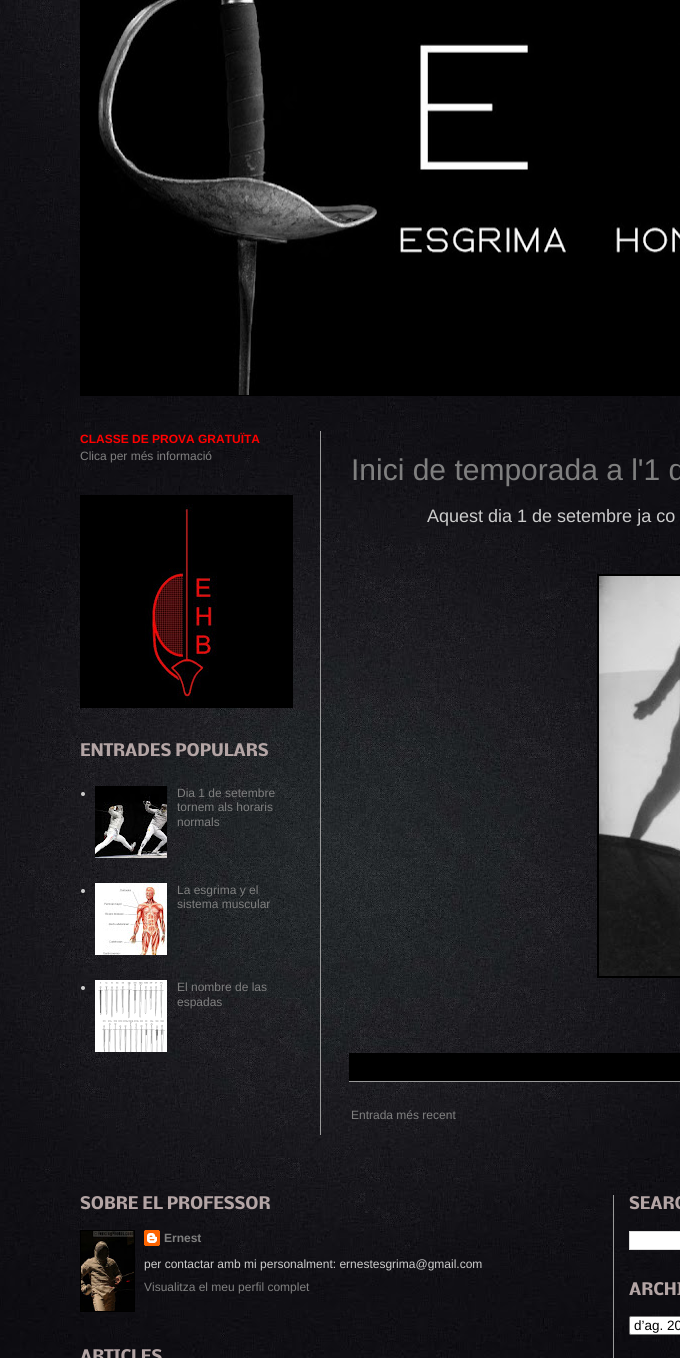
import math
import cairo

surface = cairo.ImageSurface(cairo.Format.RGB24, 680, 1358)
ctx = cairo.Context(surface)
options = cairo.FontOptions()
options.set_hint_metrics(cairo.HintMetrics.OFF)
options.set_hint_style(cairo.HintStyle.NONE)
ctx.set_font_options(options)
ctx.set_miter_limit(4)


def ink(r, g, b):
    ctx.set_source_rgb(r / 255, g / 255, b / 255)


def write(x, y, s, family, size, color, bold=False, italic=False):
    ctx.select_font_face(family, cairo.FontSlant.ITALIC if italic else cairo.FontSlant.NORMAL, cairo.FontWeight.BOLD if bold else cairo.FontWeight.NORMAL)
    ctx.set_font_size(size)
    ink(*color)
    ctx.move_to(x, y)
    ctx.show_text(s)


def block(x, y, w, h, *color):
    ink(*color)
    ctx.rectangle(x, y, w, h)
    ctx.fill()


def round_path(x, y, w, h, r):
    ctx.new_sub_path()
    for i, (u, v) in enumerate([(x + w - r, y + h - r), (x + r, y + h - r), (x + r, y + r), (x + w - r, y + r)]):
        ctx.arc(u, v, r, i * math.pi / 2, (i + 1) * math.pi / 2)
    ctx.close_path()


def paste(path, x, y, w, h):
    ctx.save()
    ctx.set_source_surface(cairo.ImageSurface.create_from_png(path), x, y)
    ctx.rectangle(x, y, w, h)
    ctx.fill()
    ctx.restore()


s1 = dict(family="Liberation Sans", size=12, color=(255, 0, 0), bold=True)
s2 = dict(family="Liberation Sans", size=12, color=(127, 127, 127))
s3 = dict(family="Nobile", size=16, color=(180, 165, 165), bold=True)
s4 = dict(family="Liberation Sans", size=30, color=(127, 127, 127))
s5 = dict(family="Liberation Sans", size=18, color=(204, 204, 204))
s6 = dict(family="Liberation Sans", size=12, color=(127, 127, 127), bold=True)
s7 = dict(family="Liberation Sans", size=12, color=(204, 204, 204))
s8 = dict(family="Liberation Sans", size=13.5, color=(0, 0, 0))

ink(255, 255, 255)
ctx.paint()
paste("pic1.png", 0, 200, 680, 1158)
paste("pic2.png", 0, 0, 80, 200)
block(80, 0, 600, 396, 0, 0, 0)
paste("pic3.png", 98, 0, 582, 395)
block(320, 431, 1, 704, 153, 153, 153)
write(80, 443, "CLASSE DE PROVA GRATUÏTA", **s1)
write(80, 460, "Clica per més informació", **s2)
block(80, 495, 213, 213, 0, 0, 0)
paste("pic4.png", 145, 504, 72, 200)
write(80, 756, "ENTRADES POPULARS", **s3)
ink(204, 204, 204)
ctx.new_path()
ctx.arc(83, 794, 2, 0, 2 * math.pi)
ctx.fill()
paste("pic5.png", 95, 786, 72, 72)
write(177, 797, "Dia 1 de setembre", **s2)
write(177, 811, "tornem als horaris", **s2)
write(177, 826, "normals", **s2)
ink(204, 204, 204)
ctx.new_path()
ctx.arc(83, 891, 2, 0, 2 * math.pi)
ctx.fill()
paste("pic6.png", 95, 883, 72, 72)
write(177, 894, "La esgrima y el", **s2)
write(177, 908, "sistema muscular", **s2)
ink(204, 204, 204)
ctx.new_path()
ctx.arc(83, 988, 2, 0, 2 * math.pi)
ctx.fill()
paste("pic7.png", 95, 980, 72, 72)
write(177, 991, "El nombre de las", **s2)
write(177, 1006, "espadas", **s2)
write(351, 480, "Inici de temporada a l'1 d", **s4)
write(427, 522, "Aquest dia 1 de setembre ja co", **s5)
block(597, 574, 83, 404, 0, 0, 0)
paste("pic8.png", 599, 576, 81, 400)
block(349, 1053, 331, 28, 0, 0, 0)
block(349, 1081, 331, 1, 153, 153, 153)
write(351, 1119, "Entrada més recent", **s2)
write(80, 1209, "SOBRE EL PROFESSOR", **s3)
block(80, 1230, 55, 82, 0, 0, 0)
paste("pic9.png", 81, 1231, 53, 80)
paste("pic10.png", 144, 1230, 16, 16)
write(164, 1242, "Ernest", **s6)
write(144, 1268, "per contactar amb mi personalment: ernestesgrima@gmail.com", **s7)
write(144, 1291, "Visualitza el meu perfil complet", **s2)
write(80, 1362, "ARTICLES", **s3)
block(613, 1195, 1, 163, 153, 153, 153)
write(629, 1209, "SEARC", **s3)
ink(255, 255, 255)
ctx.rectangle(629.5, 1231.5, 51, 18)
ctx.fill_preserve()
ink(221, 221, 221)
ctx.set_line_width(1)
ctx.stroke()
write(629, 1295, "ARCHI", **s3)
ink(255, 255, 255)
round_path(629.5, 1316.5, 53, 18, 1.5)
ctx.fill_preserve()
ink(118, 118, 118)
ctx.stroke()
write(634, 1330, "d’ag. 20", **s8)
surface.write_to_png("screenshot.png")
